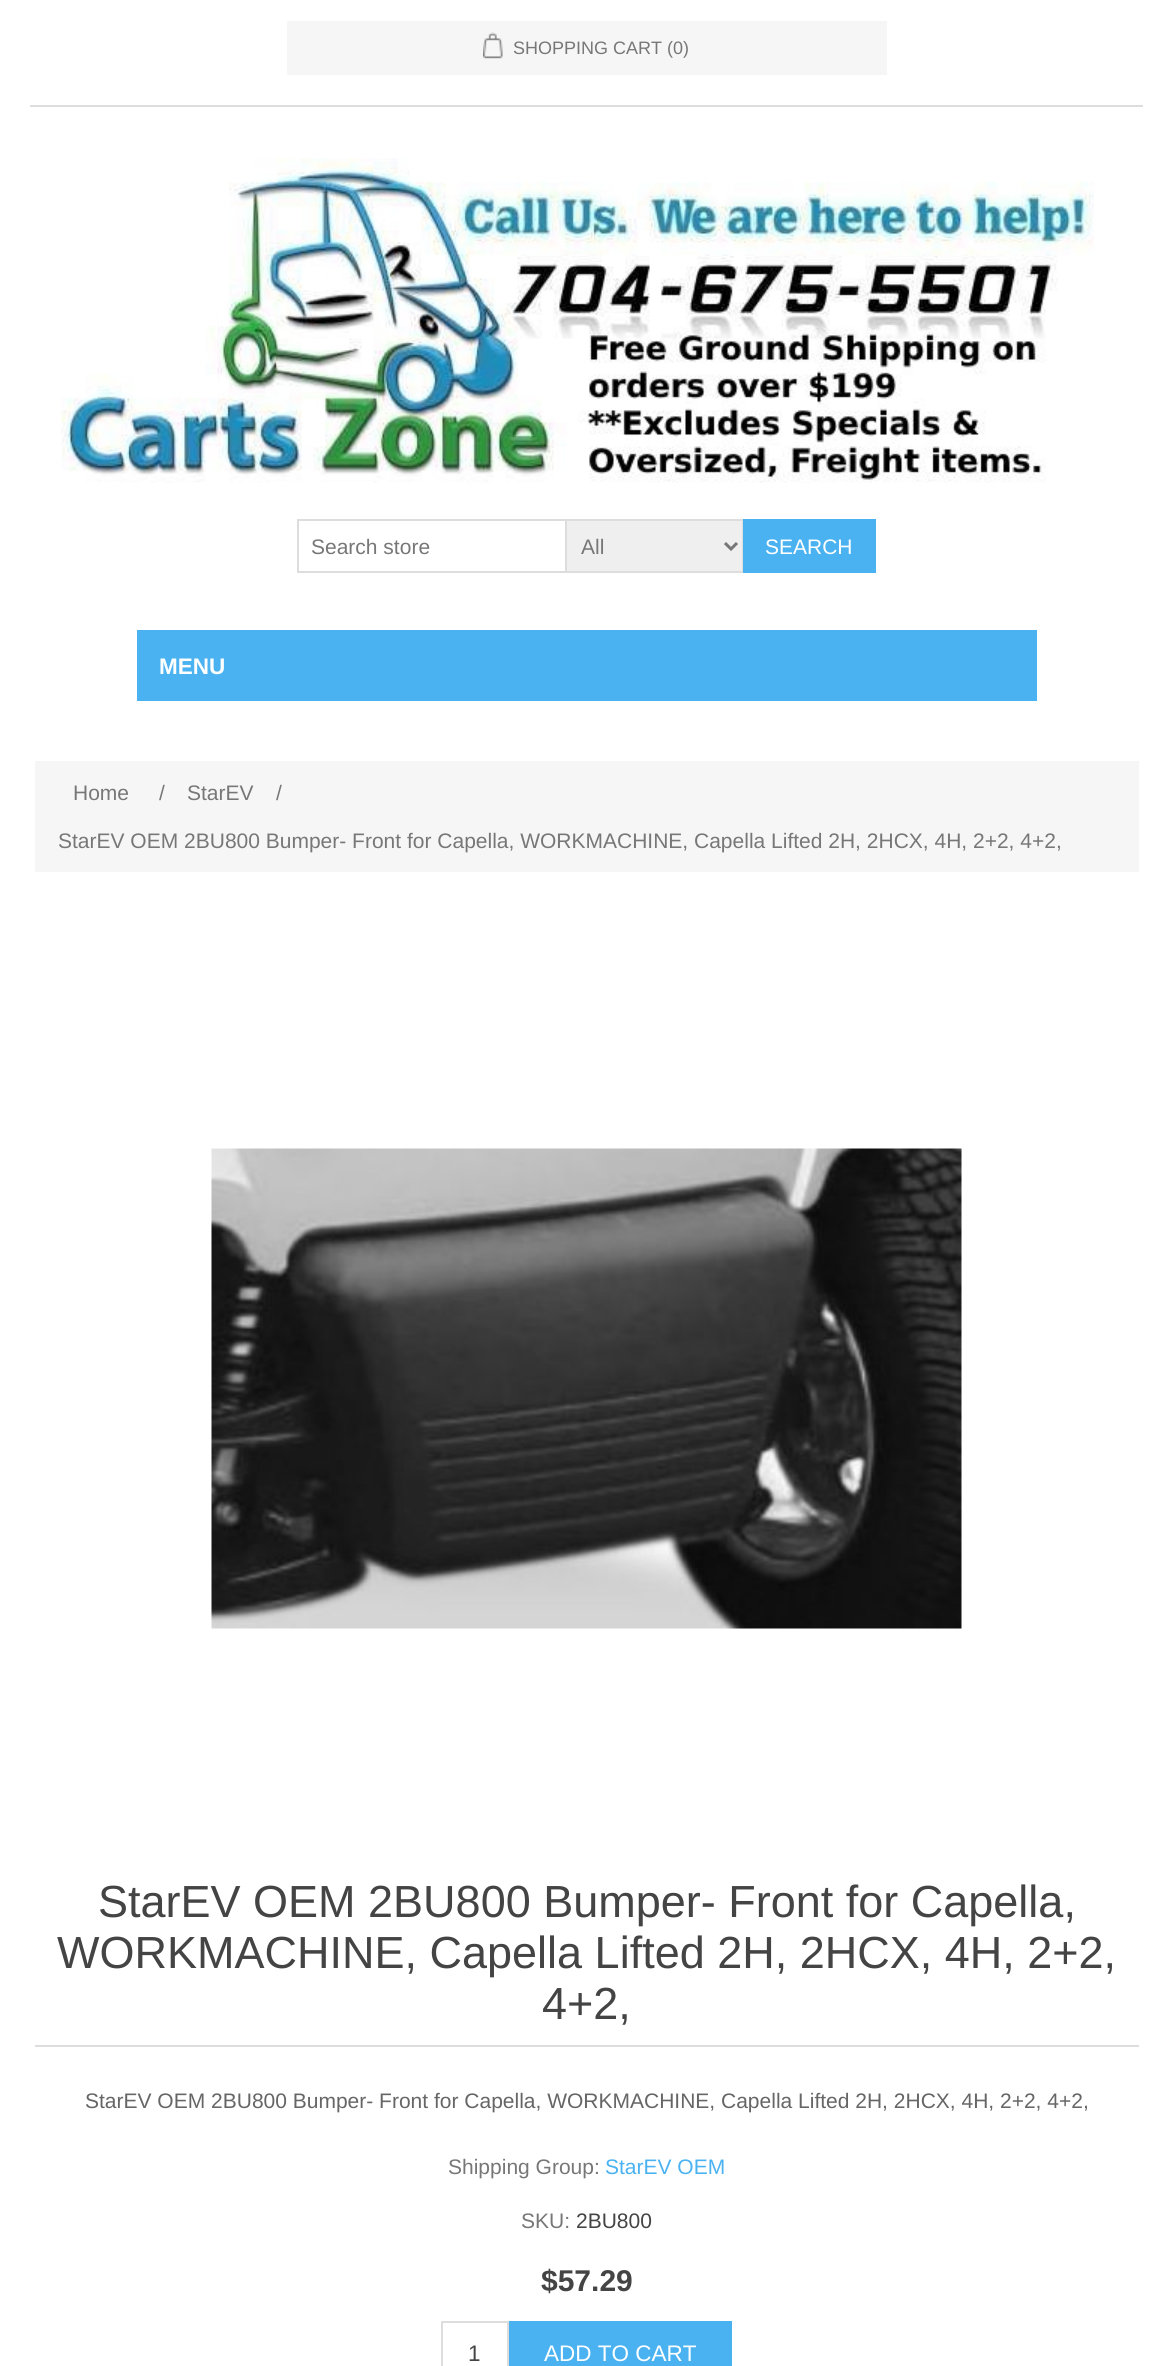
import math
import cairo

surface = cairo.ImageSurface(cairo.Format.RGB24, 1173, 2366)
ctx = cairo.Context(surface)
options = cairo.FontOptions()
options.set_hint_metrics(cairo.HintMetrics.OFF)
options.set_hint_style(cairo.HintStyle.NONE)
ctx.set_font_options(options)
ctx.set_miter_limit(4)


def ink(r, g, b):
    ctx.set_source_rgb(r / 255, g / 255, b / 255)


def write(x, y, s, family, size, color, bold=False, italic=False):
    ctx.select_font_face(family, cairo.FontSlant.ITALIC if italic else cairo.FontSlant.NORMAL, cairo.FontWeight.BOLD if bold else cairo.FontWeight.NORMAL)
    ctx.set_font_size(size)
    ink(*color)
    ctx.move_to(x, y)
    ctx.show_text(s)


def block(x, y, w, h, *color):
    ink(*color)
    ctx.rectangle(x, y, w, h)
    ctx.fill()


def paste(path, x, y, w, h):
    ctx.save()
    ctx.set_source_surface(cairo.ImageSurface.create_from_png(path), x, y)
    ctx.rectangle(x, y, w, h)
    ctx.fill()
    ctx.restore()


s1 = dict(family="Liberation Sans", size=18, color=(119, 119, 119))
s2 = dict(family="Liberation Sans", size=21, color=(119, 119, 119))
s3 = dict(family="Liberation Sans", size=21, color=(255, 255, 255))
s4 = dict(family="Liberation Sans", size=22.5, color=(255, 255, 255), bold=True)
s5 = dict(family="Liberation Sans", size=45, color=(68, 68, 68))
s6 = dict(family="Liberation Sans", size=21, color=(102, 102, 102))
s7 = dict(family="Liberation Sans", size=21, color=(74, 178, 241))
s8 = dict(family="Liberation Sans", size=21, color=(68, 68, 68))
s9 = dict(family="Liberation Sans", size=30, color=(68, 68, 68), bold=True)
s10 = dict(family="Liberation Sans", size=22.5, color=(68, 68, 68))
s11 = dict(family="Liberation Sans", size=22.5, color=(255, 255, 255))

ink(255, 255, 255)
ctx.paint()
block(30, 105, 1113, 2, 221, 221, 221)
block(287, 21, 600, 54, 246, 246, 246)
paste("pic1.png", 483, 32, 20, 27)
write(513, 54, "SHOPPING CART (0)", **s1)
paste("pic2.png", 61, 158, 1033, 325)
block(567, 521, 175, 50, 239, 239, 239)
ctx.rectangle(565, 520, 178, 52)
ink(221, 221, 221)
ctx.stroke()
block(564, 521, 1, 50, 255, 255, 255)
ctx.rectangle(298, 520, 268, 52)
ink(221, 221, 221)
ctx.stroke()
write(311, 554, "Search store", **s2)
ctx.new_path()
ctx.move_to(725, 543)
ctx.line_to(731, 549)
ctx.line_to(737, 543)
ctx.set_line_width(3)
ctx.stroke()
write(581, 554, "All", **s2)
block(743, 519, 133, 54, 74, 178, 241)
write(765, 554, "SEARCH", **s3)
block(137, 630, 900, 71, 74, 178, 241)
write(159, 674, "MENU", **s4)
block(35, 761, 1104, 111, 246, 246, 246)
write(73, 800, "Home", **s2)
write(159, 800, "/", **s2)
write(187, 800, "StarEV", **s2)
write(276, 800, "/", **s2)
write(58, 848, "StarEV OEM 2BU800 Bumper- Front for Capella, WORKMACHINE, Capella Lifted 2H, 2HCX, 4H, 2+2, 4+2,", **s2)
paste("pic3.png", 211, 1148, 751, 481)
block(35, 2045, 1104, 2, 221, 221, 221)
write(98, 1917, "StarEV OEM 2BU800 Bumper- Front for Capella,", **s5)
write(57, 1968, "WORKMACHINE, Capella Lifted 2H, 2HCX, 4H, 2+2,", **s5)
write(542, 2019, "4+2,", **s5)
write(85, 2108, "StarEV OEM 2BU800 Bumper- Front for Capella, WORKMACHINE, Capella Lifted 2H, 2HCX, 4H, 2+2, 4+2,", **s6)
write(448, 2174, "Shipping Group:", **s2)
write(605, 2174, "StarEV OEM", **s7)
write(521, 2228, "SKU:", **s2)
write(576, 2228, "2BU800", **s8)
write(541, 2291, "$57.29", **s9)
ctx.rectangle(442, 2322, 66, 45)
ink(221, 221, 221)
ctx.set_line_width(2)
ctx.stroke()
write(468, 2361, "1", **s10)
block(509, 2321, 223, 45, 74, 178, 241)
write(544, 2361, "ADD TO CART", **s11)
surface.write_to_png("screenshot.png")
